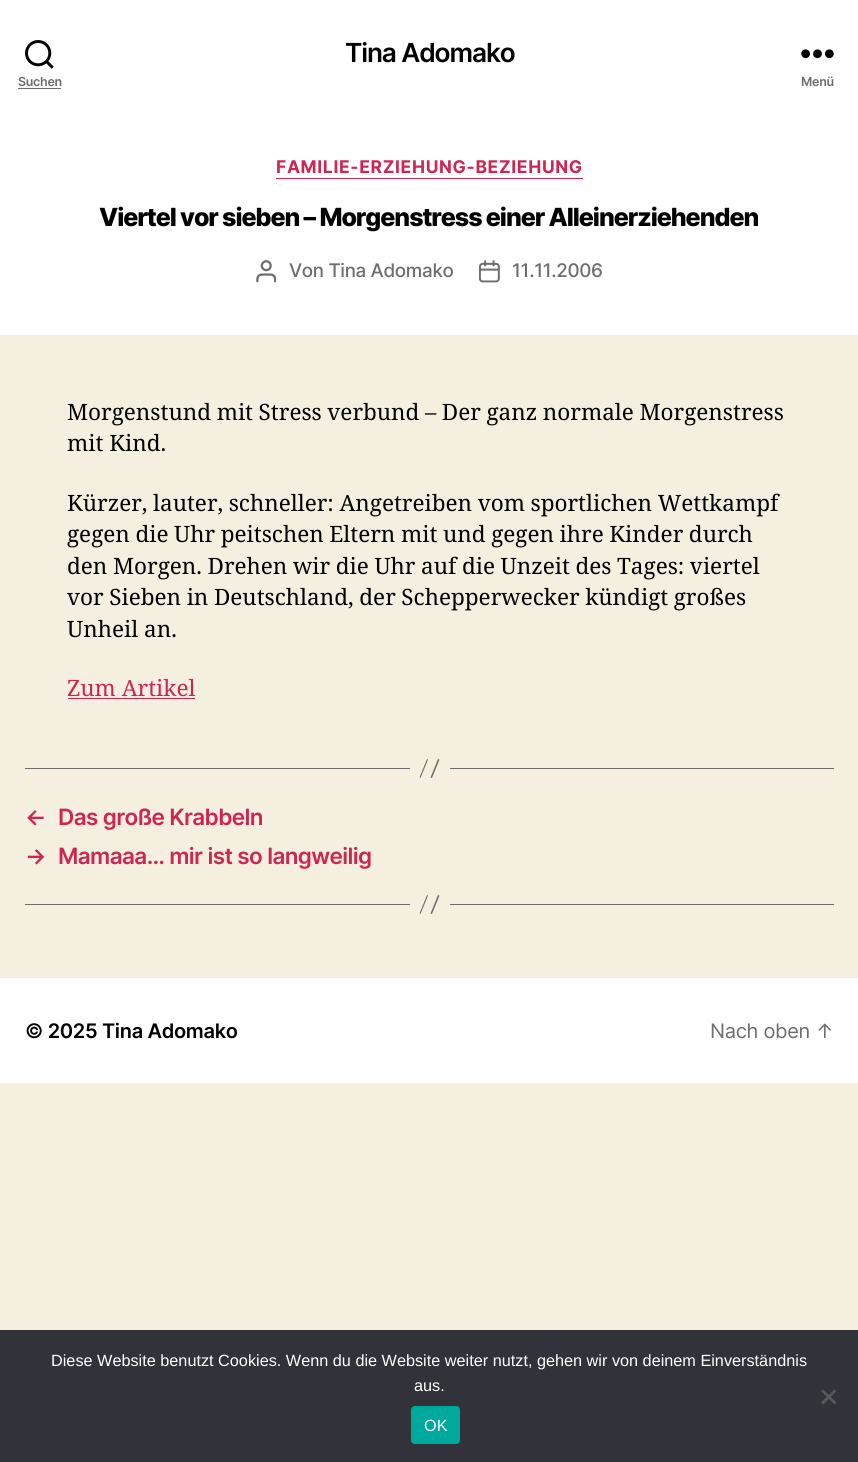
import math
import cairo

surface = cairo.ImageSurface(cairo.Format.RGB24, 858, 1462)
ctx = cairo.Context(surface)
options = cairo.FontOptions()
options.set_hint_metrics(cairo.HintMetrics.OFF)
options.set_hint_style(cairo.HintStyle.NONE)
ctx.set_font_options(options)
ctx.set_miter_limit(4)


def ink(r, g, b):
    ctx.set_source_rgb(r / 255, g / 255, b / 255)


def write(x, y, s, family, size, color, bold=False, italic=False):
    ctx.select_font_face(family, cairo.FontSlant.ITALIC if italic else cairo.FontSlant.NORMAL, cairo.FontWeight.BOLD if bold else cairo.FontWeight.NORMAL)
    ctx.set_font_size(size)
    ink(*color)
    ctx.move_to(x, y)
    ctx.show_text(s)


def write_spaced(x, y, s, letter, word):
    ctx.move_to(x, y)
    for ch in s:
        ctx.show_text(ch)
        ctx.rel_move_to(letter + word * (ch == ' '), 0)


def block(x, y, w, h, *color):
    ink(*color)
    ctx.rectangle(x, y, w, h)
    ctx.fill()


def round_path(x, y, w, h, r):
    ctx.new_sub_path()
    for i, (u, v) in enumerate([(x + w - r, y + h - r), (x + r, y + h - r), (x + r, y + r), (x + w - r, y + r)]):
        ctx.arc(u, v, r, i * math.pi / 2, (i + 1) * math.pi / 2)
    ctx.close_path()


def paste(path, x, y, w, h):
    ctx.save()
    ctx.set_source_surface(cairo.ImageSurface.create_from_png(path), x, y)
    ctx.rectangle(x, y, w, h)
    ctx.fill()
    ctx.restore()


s1 = dict(family="Noto Serif", size=22.5, color=(0, 0, 0))
s2 = dict(family="Noto Serif", size=22.5, color=(205, 38, 83))
s3 = dict(family="Liberation Sans", size=16.25, color=(255, 255, 255))

ink(245, 239, 224)
ctx.paint()
block(0, 0, 858, 335, 255, 255, 255)
ctx.select_font_face("Inter SemiBold")
ctx.set_font_size(26.25)
ink(0, 0, 0)
write_spaced(345, 62, "Tina Adomako", -1.1, 0)
paste("pic1.png", 25, 40, 29, 29)
ctx.set_font_size(12.5)
ink(109, 109, 109)
write_spaced(18, 86, "Suchen", -0.3, 0)
block(18, 88, 43, 1, 109, 109, 109)
paste("pic2.png", 801, 49, 33, 10)
write_spaced(801, 86, "Menü", -0.3, 0)
block(276, 178, 307, 1, 205, 38, 83)
ctx.select_font_face("Inter", cairo.FontSlant.NORMAL, cairo.FontWeight.BOLD)
ctx.set_font_size(17.5)
write_spaced(276, 173, "FAMILIE-ERZIEHUNG-BEZIEHUNG", 0.65, 0)
ctx.select_font_face("Inter ExtraBold")
ctx.set_font_size(25)
ink(0, 0, 0)
write_spaced(99, 226, "Viertel vor sieben – Morgenstress einer Alleinerziehenden", -1.05, 0)
paste("pic3.png", 256, 260, 20, 23)
ctx.select_font_face("Inter Medium")
ctx.set_font_size(18.75)
ink(109, 109, 109)
write_spaced(289, 277, "Von Tina Adomako", -0.3, 0)
paste("pic4.png", 479, 260, 21, 23)
write_spaced(512, 277, "11.11.2006", -0.3, 0)
ctx.select_font_face("Noto Serif")
ctx.set_font_size(22.5)
ink(0, 0, 0)
write_spaced(67, 420, "Morgenstund mit Stress verbund – Der ganz normale Morgenstress", 0, -0.25)
write(67, 451, "mit Kind.", **s1)
write_spaced(67, 511, "Kürzer, lauter, schneller: Angetreiben vom sportlichen Wettkampf", 0, -0.25)
write_spaced(67, 542, "gegen die Uhr peitschen Eltern mit und gegen ihre Kinder durch", 0, -0.25)
write_spaced(67, 574, "den Morgen. Drehen wir die Uhr auf die Unzeit des Tages: viertel", 0, -0.25)
write_spaced(67, 605, "vor Sieben in Deutschland, der Schepperwecker kündigt großes", 0, -0.25)
write(67, 637, "Unheil an.", **s1)
write(67, 696, "Zum Artikel", **s2)
block(68, 698, 127, 1, 205, 38, 83)
block(450, 768, 384, 1, 109, 109, 109)
block(25, 768, 385, 1, 109, 109, 109)
ctx.new_path()
ctx.move_to(427, 759)
ctx.line_to(428, 759.5)
ctx.line_to(420.5, 778)
ctx.line_to(419.5, 777.5)
ctx.close_path()
ctx.move_to(438, 759)
ctx.line_to(439.5, 759.5)
ctx.line_to(432, 778)
ctx.line_to(430.5, 777.5)
ctx.close_path()
ctx.fill()
ctx.select_font_face("Inter SemiBold")
ink(205, 38, 83)
write_spaced(25, 825, "←", -0.6, 0)
write_spaced(58, 825, "Das große Krabbeln", -0.6, 0)
write_spaced(25, 864, "→", -0.6, 0)
write_spaced(58, 864, "Mamaaa… mir ist so langweilig", -0.6, 0)
block(450, 904, 384, 1, 109, 109, 109)
block(25, 904, 385, 1, 109, 109, 109)
ctx.new_path()
ctx.move_to(427, 895)
ctx.line_to(428, 895.5)
ctx.line_to(420.5, 914)
ctx.line_to(419.5, 913.5)
ctx.close_path()
ctx.move_to(438, 895)
ctx.line_to(439.5, 895.5)
ctx.line_to(432, 914)
ctx.line_to(430.5, 913.5)
ctx.close_path()
ctx.fill()
block(0, 978, 858, 105, 255, 255, 255)
ctx.set_font_size(20)
ink(0, 0, 0)
write_spaced(25, 1038, "© 2025 Tina Adomako", -0.3, 0)
ctx.select_font_face("Inter")
ink(109, 109, 109)
write_spaced(710, 1038, "Nach oben ↑", -0.3, 0)
block(0, 1330, 858, 132, 50, 50, 58)
write(51, 1366, "Diese Website benutzt Cookies. Wenn du die Website weiter nutzt, gehen wir von deinem Einverständnis", **s3)
write(414, 1391, "aus.", **s3)
ink(89, 89, 93)
ctx.new_path()
ctx.move_to(834.5, 1389.5)
ctx.line_to(836.5, 1391)
ctx.line_to(823, 1404.5)
ctx.line_to(821, 1402.5)
ctx.close_path()
ctx.fill()
ctx.new_path()
ctx.move_to(821, 1391)
ctx.line_to(823, 1389.5)
ctx.line_to(836.5, 1402.5)
ctx.line_to(834.5, 1404.5)
ctx.close_path()
ctx.fill()
ink(0, 169, 157)
round_path(411, 1406, 49, 38, 4)
ctx.fill()
write(424, 1431, "OK", **s3)
surface.write_to_png("screenshot.png")
